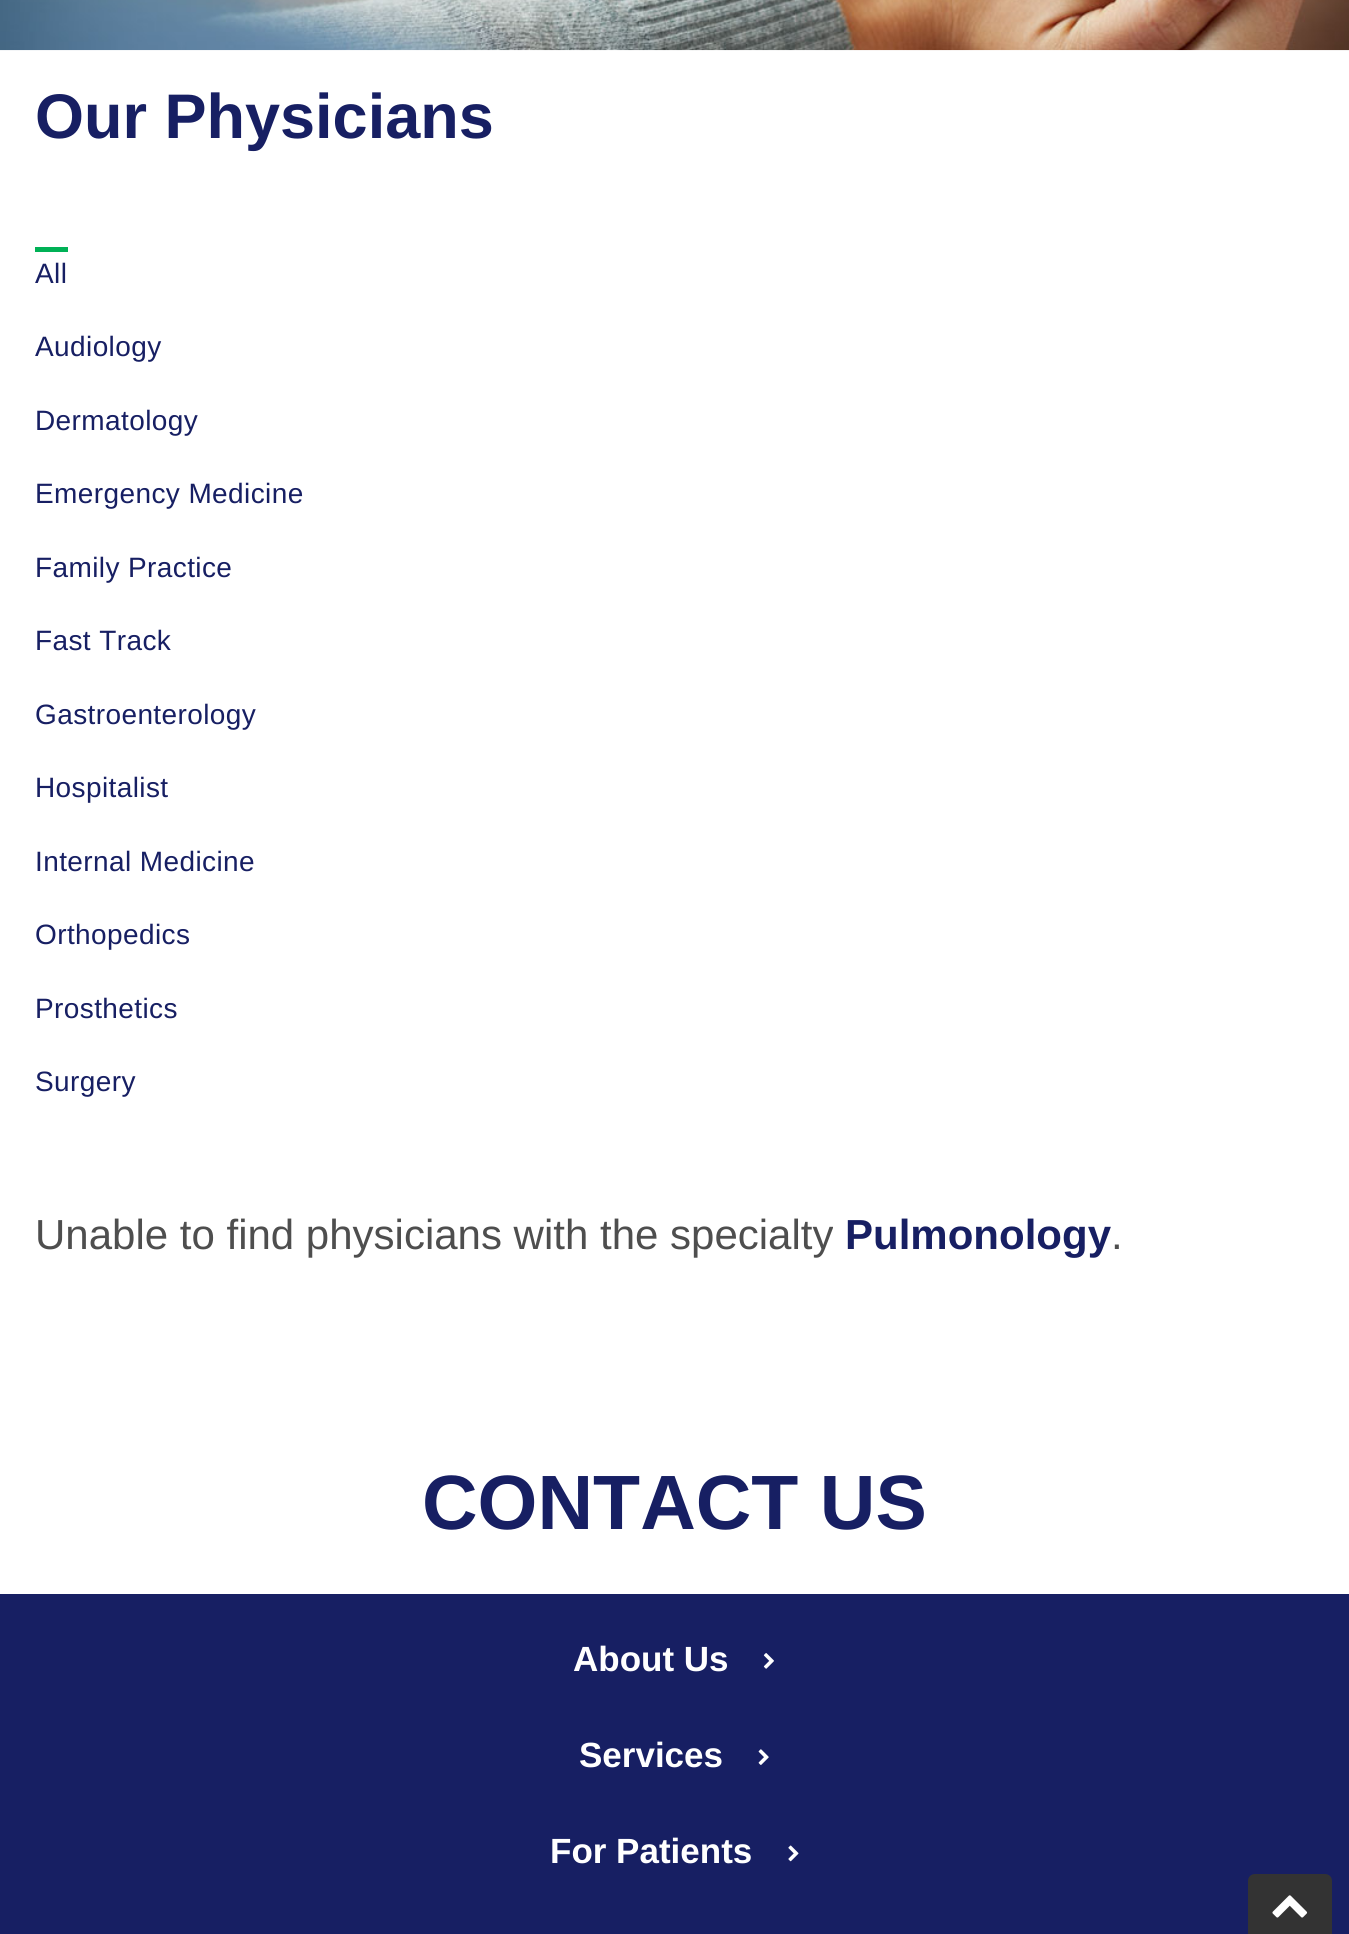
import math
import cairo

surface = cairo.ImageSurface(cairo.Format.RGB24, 1349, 1934)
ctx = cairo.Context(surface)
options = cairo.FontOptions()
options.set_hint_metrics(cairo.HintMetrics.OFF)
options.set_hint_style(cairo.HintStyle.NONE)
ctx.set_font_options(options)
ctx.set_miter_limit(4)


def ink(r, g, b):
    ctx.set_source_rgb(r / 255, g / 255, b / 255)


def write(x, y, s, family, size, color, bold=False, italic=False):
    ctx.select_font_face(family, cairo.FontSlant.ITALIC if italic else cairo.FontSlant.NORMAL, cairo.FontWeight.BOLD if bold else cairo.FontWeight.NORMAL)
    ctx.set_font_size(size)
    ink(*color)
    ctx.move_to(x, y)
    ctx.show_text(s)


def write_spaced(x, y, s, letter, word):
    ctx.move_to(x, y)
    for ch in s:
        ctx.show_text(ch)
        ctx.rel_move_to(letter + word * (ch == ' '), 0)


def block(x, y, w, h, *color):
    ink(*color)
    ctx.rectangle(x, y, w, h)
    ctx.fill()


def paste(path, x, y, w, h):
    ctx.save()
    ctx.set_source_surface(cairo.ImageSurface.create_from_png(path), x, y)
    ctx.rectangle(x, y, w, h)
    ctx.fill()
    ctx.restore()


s1 = dict(family="Liberation Sans", size=63, color=(23, 31, 99), bold=True)
s2 = dict(family="Liberation Sans", size=42, color=(78, 78, 78))
s3 = dict(family="Liberation Sans", size=42, color=(23, 31, 99), bold=True)
s4 = dict(family="Liberation Sans", size=77, color=(23, 31, 99), bold=True)
s5 = dict(family="Liberation Sans", size=35, color=(255, 255, 255), bold=True)

ink(255, 255, 255)
ctx.paint()
paste("pic1.png", 0, 0, 1349, 51)
write(35, 138, "Our Physicians", **s1)
ctx.select_font_face("Liberation Sans")
ctx.set_font_size(28)
write_spaced(35, 283, "All", 0.4, 0)
block(35, 247, 33, 5, 0, 177, 86)
ink(23, 31, 99)
write_spaced(35, 356, "Audiology", 0.4, 0)
write_spaced(35, 430, "Dermatology", 0.4, 0)
write_spaced(35, 503, "Emergency Medicine", 0.4, 0)
write_spaced(35, 577, "Family Practice", 0.4, 0)
write_spaced(35, 650, "Fast Track", 0.4, 0)
write_spaced(35, 724, "Gastroenterology", 0.4, 0)
write_spaced(35, 797, "Hospitalist", 0.4, 0)
write_spaced(35, 871, "Internal Medicine", 0.4, 0)
write_spaced(35, 944, "Orthopedics", 0.4, 0)
write_spaced(35, 1018, "Prosthetics", 0.4, 0)
write_spaced(35, 1091, "Surgery", 0.4, 0)
write(35, 1249, "Unable to find physicians with the specialty", **s2)
write(845, 1249, "Pulmonology", **s3)
write(1111, 1249, ".", **s2)
write(422, 1529, "CONTACT US", **s4)
block(0, 1594, 1349, 340, 23, 31, 99)
write(573, 1671, "About Us", **s5)
paste("pic2.png", 763, 1653, 11, 16)
write(579, 1767, "Services", **s5)
paste("pic3.png", 758, 1749, 11, 16)
write(550, 1863, "For Patients", **s5)
paste("pic4.png", 788, 1845, 11, 17)
ink(51, 51, 51)
ctx.new_path()
ctx.move_to(1255, 1874)
ctx.line_to(1325, 1874)
ctx.curve_to(1329, 1874, 1332, 1877, 1332, 1881)
ctx.line_to(1332, 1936)
ctx.line_to(1248, 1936)
ctx.line_to(1248, 1881)
ctx.curve_to(1248, 1877, 1251, 1874, 1255, 1874)
ctx.close_path()
ctx.fill()
paste("pic5.png", 1272, 1895, 36, 23)
surface.write_to_png("screenshot.png")
